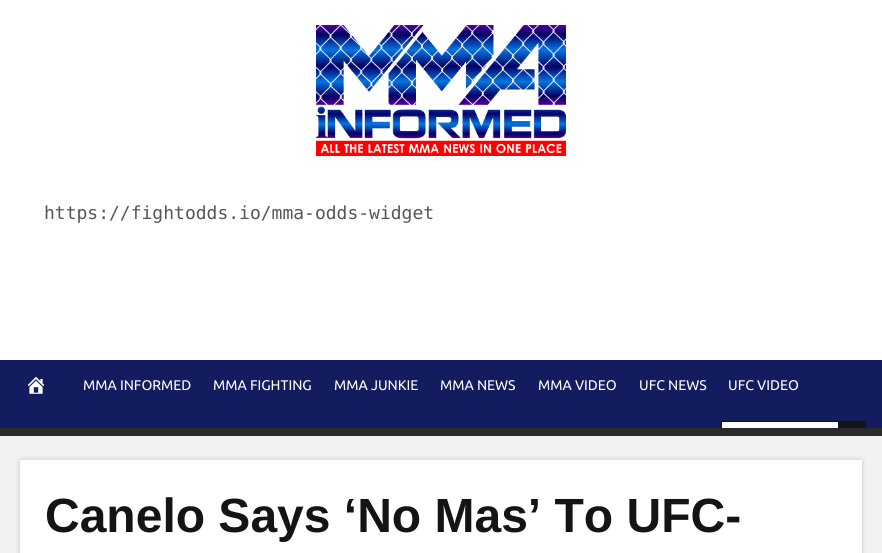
import math
import cairo

surface = cairo.ImageSurface(cairo.Format.RGB24, 882, 553)
ctx = cairo.Context(surface)
options = cairo.FontOptions()
options.set_hint_metrics(cairo.HintMetrics.OFF)
options.set_hint_style(cairo.HintStyle.NONE)
ctx.set_font_options(options)
ctx.set_miter_limit(4)


def ink(r, g, b):
    ctx.set_source_rgb(r / 255, g / 255, b / 255)


def write(x, y, s, family, size, color, bold=False, italic=False):
    ctx.select_font_face(family, cairo.FontSlant.ITALIC if italic else cairo.FontSlant.NORMAL, cairo.FontWeight.BOLD if bold else cairo.FontWeight.NORMAL)
    ctx.set_font_size(size)
    ink(*color)
    ctx.move_to(x, y)
    ctx.show_text(s)


def block(x, y, w, h, *color):
    ink(*color)
    ctx.rectangle(x, y, w, h)
    ctx.fill()


def round_path(x, y, w, h, r):
    ctx.new_sub_path()
    for i, (u, v) in enumerate([(x + w - r, y + h - r), (x + r, y + h - r), (x + r, y + r), (x + w - r, y + r)]):
        ctx.arc(u, v, r, i * math.pi / 2, (i + 1) * math.pi / 2)
    ctx.close_path()


def blur_box(x, y, w, h, r, blur, alpha):
    ctx.push_group_with_content(cairo.Content.ALPHA)
    ctx.set_operator(cairo.Operator.SOURCE)
    for i in range(15, -16, -2):
        e = blur * i / 6
        if min(w, h) + 2 * e > 0:
            ctx.set_source_rgba(0, 0, 0, alpha * math.erfc((i - 1) / 8.5) / 2)
            round_path(x - e, y - e, w + 2 * e, h + 2 * e, max(0, min(r + e + blur * .6, min(w, h) / 2 + e)))
            ctx.fill()
    ctx.mask(ctx.pop_group())


def paste(path, x, y, w, h):
    ctx.save()
    ctx.set_source_surface(cairo.ImageSurface.create_from_png(path), x, y)
    ctx.rectangle(x, y, w, h)
    ctx.fill()
    ctx.restore()


s1 = dict(family="DejaVu Sans Mono", size=18, color=(86, 86, 86))
s2 = dict(family="Ubuntu", size=14, color=(255, 255, 255))
s3 = dict(family="Liberation Sans", size=48, color=(20, 20, 20), bold=True)

ink(242, 242, 242)
ctx.paint()
block(0, 0, 882, 360, 255, 255, 255)
paste("pic1.png", 316, 25, 250, 131)
write(44, 219, "https://fightodds.io/mma-odds-widget", **s1)
block(0, 360, 882, 68, 18, 28, 94)
block(0, 428, 882, 8, 42, 42, 42)
paste("pic2.png", 27, 376, 18, 18)
write(83, 390, "MMA INFORMED", **s2)
write(213, 390, "MMA FIGHTING", **s2)
write(334, 390, "MMA JUNKIE", **s2)
write(440, 390, "MMA NEWS", **s2)
write(538, 390, "MMA VIDEO", **s2)
write(639, 390, "UFC NEWS", **s2)
write(728, 390, "UFC VIDEO", **s2)
block(721, 422, 117, 6, 255, 255, 255)
ctx.save()
ctx.rectangle(721, 410, 150, 18)
ctx.clip()
ctx.rectangle(721.5, 421.5, 142, 27)
ink(20, 20, 20)
ctx.set_line_width(1)
ctx.stroke()
ctx.restore()
block(838, 421, 28, 7, 20, 20, 20)
ink(0, 0, 0)
blur_box(21, 461, 840, 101, 0, 3, 0.25)
block(20, 460, 842, 93, 255, 255, 255)
write(45, 532, "Canelo Says ‘No Mas’ To UFC-", **s3)
surface.write_to_png("screenshot.png")
